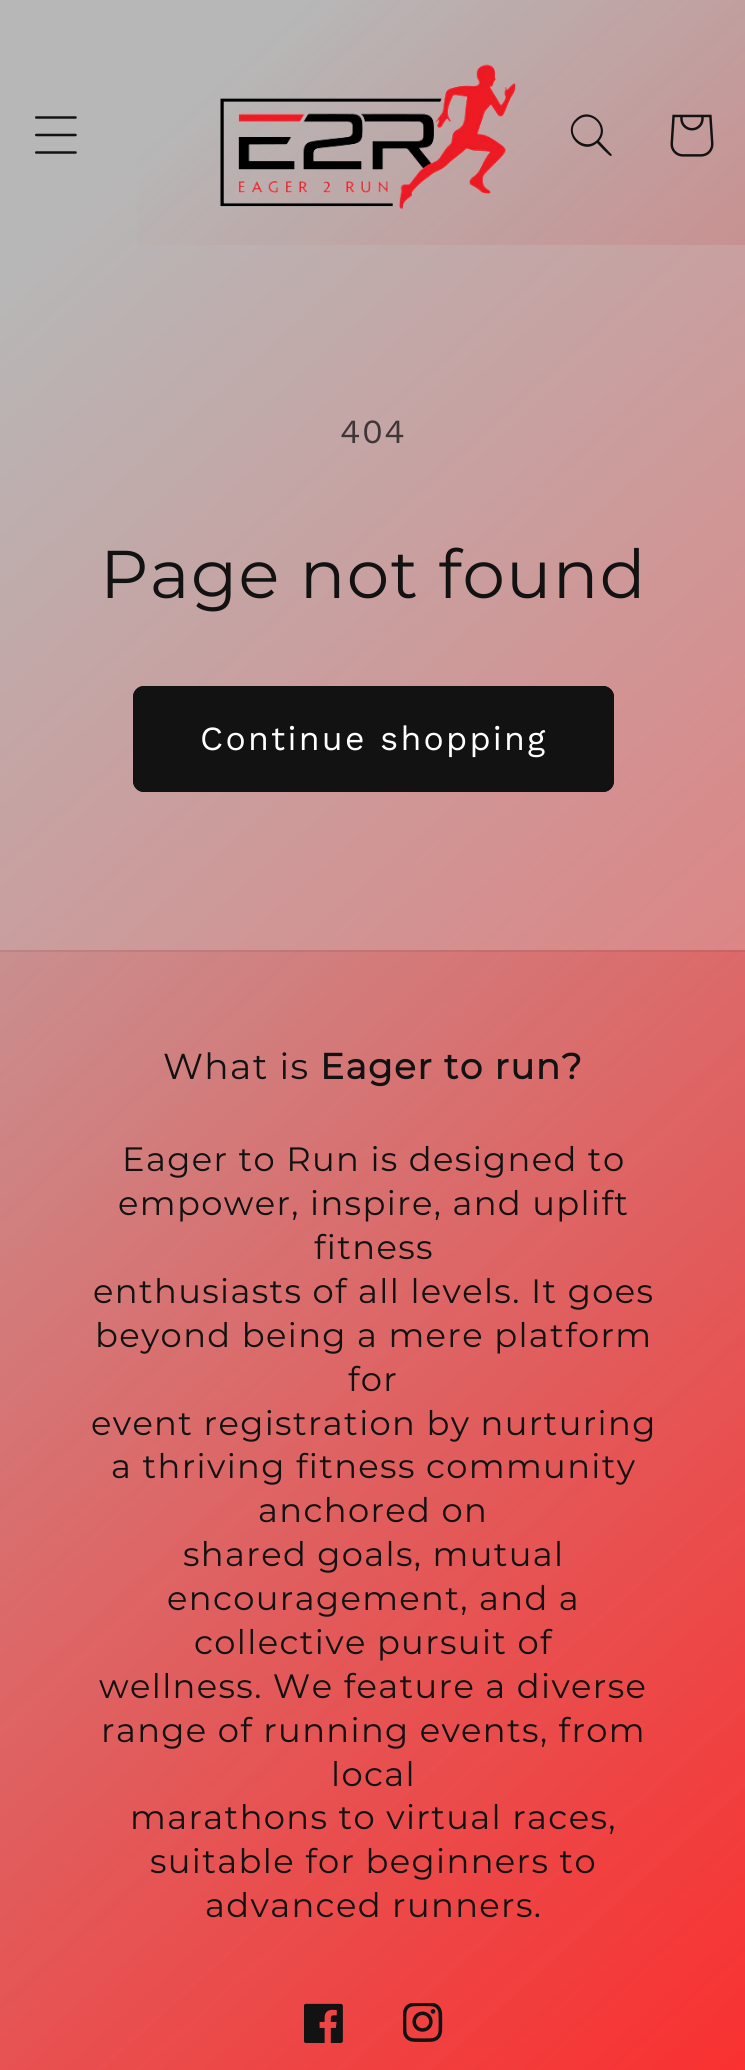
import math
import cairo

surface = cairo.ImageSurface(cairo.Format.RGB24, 745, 2070)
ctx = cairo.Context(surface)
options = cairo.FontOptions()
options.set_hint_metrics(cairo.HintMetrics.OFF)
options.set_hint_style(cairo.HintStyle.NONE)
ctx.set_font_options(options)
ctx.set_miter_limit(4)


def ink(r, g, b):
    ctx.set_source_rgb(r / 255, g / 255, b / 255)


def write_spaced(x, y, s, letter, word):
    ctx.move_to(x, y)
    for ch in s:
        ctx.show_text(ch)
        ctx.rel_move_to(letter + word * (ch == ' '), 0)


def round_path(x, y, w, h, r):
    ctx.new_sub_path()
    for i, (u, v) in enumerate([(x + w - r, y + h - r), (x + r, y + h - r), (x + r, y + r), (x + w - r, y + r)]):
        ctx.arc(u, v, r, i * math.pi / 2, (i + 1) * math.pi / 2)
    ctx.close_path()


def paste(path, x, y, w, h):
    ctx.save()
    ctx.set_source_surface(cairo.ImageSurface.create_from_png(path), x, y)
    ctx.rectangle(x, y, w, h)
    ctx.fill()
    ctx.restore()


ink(255, 255, 255)
ctx.paint()
gradient = cairo.LinearGradient(-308, 278, 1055, 1792)
gradient.add_color_stop_rgba(0.1, 0.718, 0.718, 0.718, 1)
gradient.add_color_stop_rgba(1, 0.984, 0.361, 0.361, 1)
ctx.set_source(gradient)
ctx.rectangle(0, 0, 745, 2070)
ctx.fill()
gradient = cairo.LinearGradient(-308, 278, 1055, 1792)
gradient.add_color_stop_rgba(0.1, 0.718, 0.718, 0.718, 1)
gradient.add_color_stop_rgba(1, 0.976, 0.125, 0.125, 0.73)
ctx.set_source(gradient)
ctx.rectangle(137, 0, 608, 245)
ctx.fill()
paste("pic1.png", 35, 116, 42, 38)
paste("pic2.png", 220, 64, 296, 146)
ink(18, 18, 18)
ctx.set_fill_rule(cairo.FillRule.EVEN_ODD)
ctx.new_path()
ctx.move_to(597, 140)
ctx.curve_to(584, 153, 564, 133, 577, 121)
ctx.curve_to(590, 108, 609, 127, 597, 140)
ctx.close_path()
ctx.move_to(597, 143)
ctx.curve_to(582, 156, 561, 133, 576, 119)
ctx.curve_to(590, 105, 612, 126, 599, 141)
ctx.line_to(612, 155)
ctx.line_to(611, 156)
ctx.curve_to(610, 157, 599, 145, 597, 143)
ctx.close_path()
ctx.fill()
paste("pic3.png", 670, 114, 44, 43)
ctx.select_font_face("Work Sans")
ctx.set_font_size(33.75)
ink(63, 55, 55)
write_spaced(340, 443, "404", 1.35, 0)
ctx.select_font_face("Montserrat")
ctx.set_font_size(67.5)
ink(18, 18, 18)
write_spaced(100, 598, "Page not found", 1.35, 0)
round_path(133, 686, 481, 106, 11)
ctx.fill()
round_path(134, 687, 479, 104, 10)
ctx.stroke()
ctx.select_font_face("Work Sans")
ctx.set_font_size(33.75)
ink(255, 255, 255)
write_spaced(200, 750, "Continue shopping", 2.25, 0)
gradient = cairo.LinearGradient(-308, 278, 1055, 1792)
gradient.add_color_stop_rgba(0.1, 0.718, 0.718, 0.718, 1)
gradient.add_color_stop_rgba(1, 0.976, 0.125, 0.125, 0.73)
ctx.set_source(gradient)
ctx.rectangle(0, 950, 745, 1120)
ctx.fill()
ctx.set_source_rgba(0.071, 0.071, 0.071, 0.08)
ctx.rectangle(0, 950, 745, 2)
ctx.fill()
ctx.select_font_face("Montserrat")
ctx.set_font_size(36)
ink(18, 18, 18)
write_spaced(163, 1079, "What is", 1.35, 0)
ctx.select_font_face("Montserrat", cairo.FontSlant.NORMAL, cairo.FontWeight.BOLD)
write_spaced(320, 1079, "Eager to run?", 1.35, 0)
ctx.select_font_face("Montserrat")
ctx.set_font_size(33.75)
write_spaced(122, 1171, "Eager to Run is designed to", 1.35, 0)
write_spaced(118, 1215, "empower, inspire, and uplift", 1.35, 0)
write_spaced(314, 1259, "fitness", 1.35, 0)
write_spaced(93, 1303, "enthusiasts of all levels. It goes", 1.35, 0)
write_spaced(95, 1347, "beyond being a mere platform", 1.35, 0)
write_spaced(348, 1391, "for", 1.35, 0)
write_spaced(91, 1435, "event registration by nurturing", 1.35, 0)
write_spaced(111, 1478, "a thriving fitness community", 1.35, 0)
write_spaced(258, 1522, "anchored on", 1.35, 0)
write_spaced(183, 1566, "shared goals, mutual", 1.35, 0)
write_spaced(167, 1610, "encouragement, and a", 1.35, 0)
write_spaced(194, 1654, "collective pursuit of", 1.35, 0)
write_spaced(99, 1698, "wellness. We feature a diverse", 1.35, 0)
write_spaced(101, 1742, "range of running events, from", 1.35, 0)
write_spaced(331, 1786, "local", 1.35, 0)
write_spaced(130, 1829, "marathons to virtual races,", 1.35, 0)
write_spaced(150, 1873, "suitable for beginners to", 1.35, 0)
write_spaced(205, 1917, "advanced runners.", 1.35, 0)
paste("pic4.png", 304, 2003, 39, 40)
paste("pic5.png", 403, 2003, 40, 39)
surface.write_to_png("screenshot.png")
